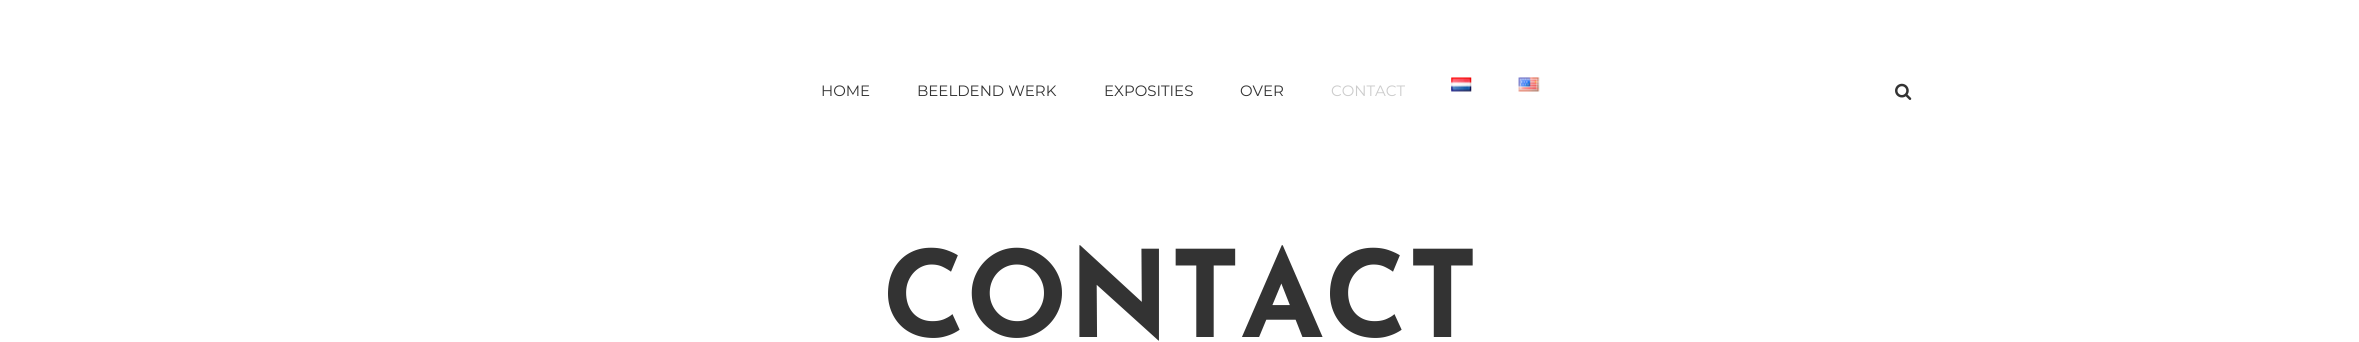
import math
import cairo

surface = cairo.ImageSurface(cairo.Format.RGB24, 2359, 342)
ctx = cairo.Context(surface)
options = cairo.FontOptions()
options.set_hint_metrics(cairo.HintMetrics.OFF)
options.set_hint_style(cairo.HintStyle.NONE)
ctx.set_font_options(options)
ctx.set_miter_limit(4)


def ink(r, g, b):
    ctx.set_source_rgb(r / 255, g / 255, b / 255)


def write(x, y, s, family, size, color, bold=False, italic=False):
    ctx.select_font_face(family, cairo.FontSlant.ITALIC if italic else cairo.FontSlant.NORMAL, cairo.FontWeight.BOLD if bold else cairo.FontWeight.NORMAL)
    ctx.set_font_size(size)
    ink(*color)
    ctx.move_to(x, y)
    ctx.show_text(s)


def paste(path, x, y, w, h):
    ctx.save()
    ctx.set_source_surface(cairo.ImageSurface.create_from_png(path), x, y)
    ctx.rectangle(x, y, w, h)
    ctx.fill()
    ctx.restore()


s1 = dict(family="Montserrat", size=15, color=(51, 51, 51))
s2 = dict(family="Montserrat", size=15, color=(204, 204, 204))
s3 = dict(family="Josefin Sans", size=120, color=(51, 51, 51), bold=True)

ink(255, 255, 255)
ctx.paint()
write(821, 96, "HOME", **s1)
write(917, 96, "BEELDEND WERK", **s1)
write(1104, 96, "EXPOSITIES", **s1)
write(1240, 96, "OVER", **s1)
write(1331, 96, "CONTACT", **s2)
paste("pic1.png", 1451, 77, 21, 15)
paste("pic2.png", 1518, 77, 22, 15)
paste("pic3.png", 1895, 83, 17, 17)
write(882, 337, "CONTACT", **s3)
surface.write_to_png("screenshot.png")
